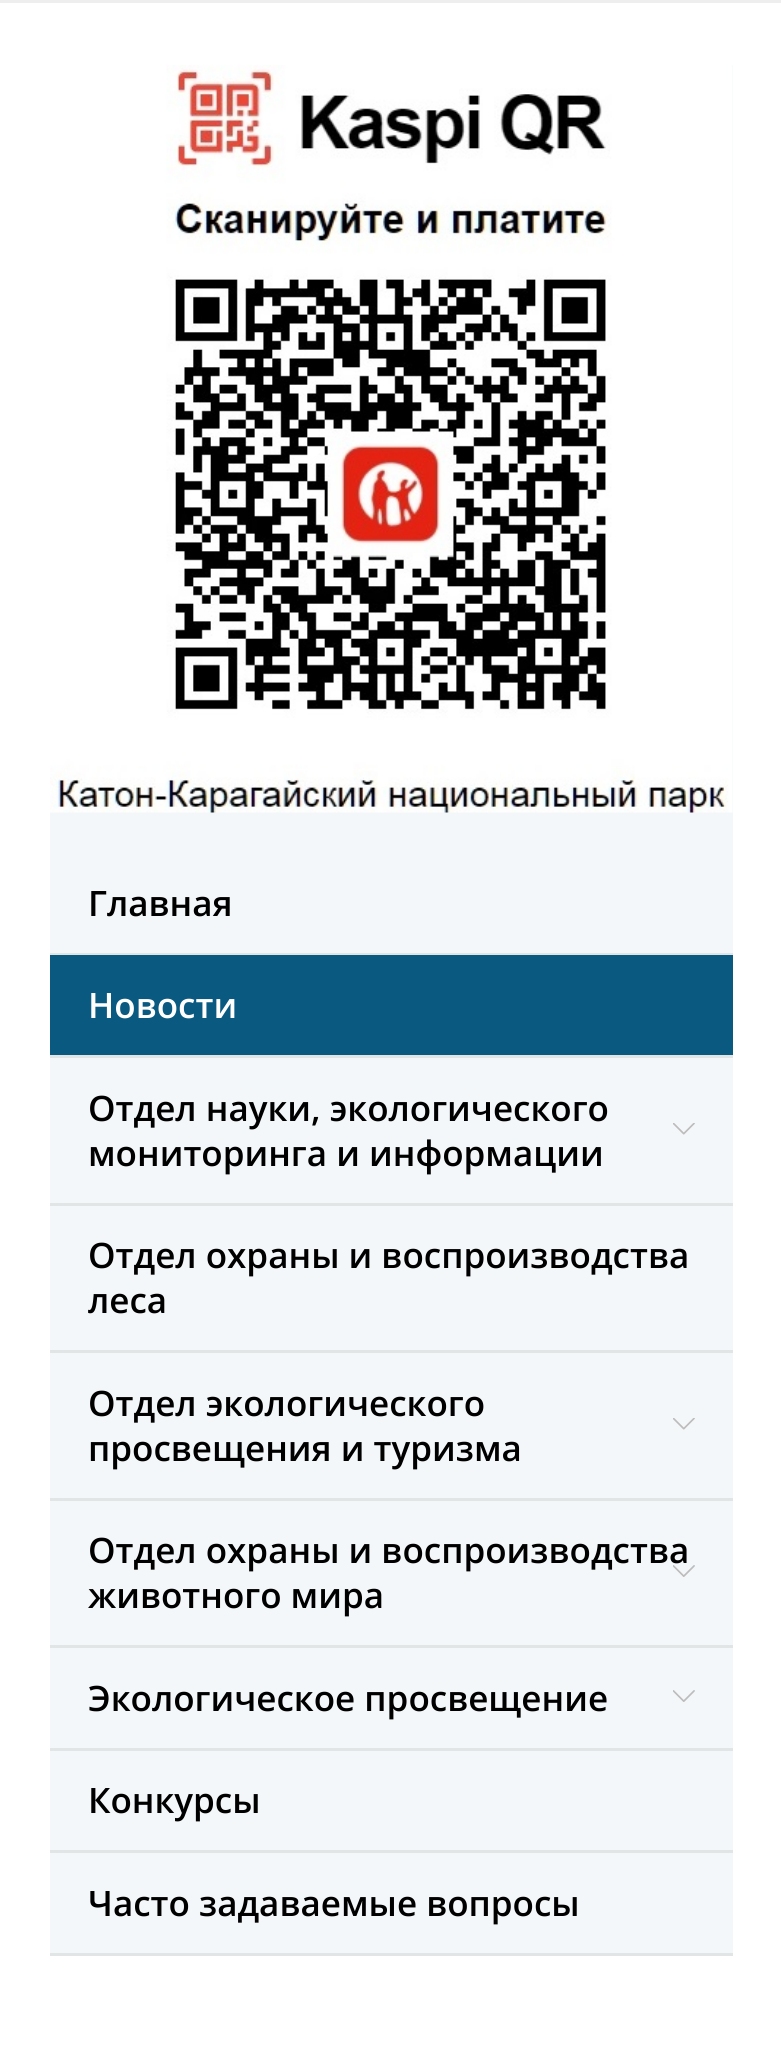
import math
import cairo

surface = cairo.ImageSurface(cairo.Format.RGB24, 781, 2052)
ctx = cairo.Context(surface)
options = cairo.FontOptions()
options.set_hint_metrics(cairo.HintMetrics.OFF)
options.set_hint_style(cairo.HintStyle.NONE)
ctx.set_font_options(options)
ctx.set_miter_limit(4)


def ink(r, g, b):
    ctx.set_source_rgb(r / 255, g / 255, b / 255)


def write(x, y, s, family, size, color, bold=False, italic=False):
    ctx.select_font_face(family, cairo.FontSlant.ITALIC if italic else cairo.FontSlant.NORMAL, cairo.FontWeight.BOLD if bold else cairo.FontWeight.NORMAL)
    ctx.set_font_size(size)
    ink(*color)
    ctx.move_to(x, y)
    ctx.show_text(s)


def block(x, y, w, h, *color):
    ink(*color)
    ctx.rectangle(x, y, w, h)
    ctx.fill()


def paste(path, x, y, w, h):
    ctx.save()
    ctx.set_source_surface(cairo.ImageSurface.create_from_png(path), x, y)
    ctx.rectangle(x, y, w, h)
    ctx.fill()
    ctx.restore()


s1 = dict(family="Open Sans SemiBold", size=35, color=(0, 0, 0))
s2 = dict(family="Open Sans SemiBold", size=35, color=(255, 255, 255))

ink(255, 255, 255)
ctx.paint()
block(0, 0, 781, 3, 238, 238, 238)
block(50, 65, 683, 1888, 244, 247, 249)
paste("pic1.png", 50, 65, 683, 748)
block(50, 953, 683, 2, 226, 229, 230)
write(88, 916, "Главная", **s1)
block(50, 1055, 683, 3, 226, 229, 230)
block(50, 955, 683, 100, 10, 89, 129)
write(88, 1018, "Новости", **s2)
block(50, 1203, 683, 3, 226, 229, 230)
write(88, 1121, "Отдел науки, экологического", **s1)
paste("pic2.png", 673, 1123, 22, 12)
write(88, 1166, "мониторинга и информации", **s1)
block(50, 1350, 683, 3, 226, 229, 230)
write(88, 1268, "Отдел охраны и воспроизводства", **s1)
write(88, 1313, "леса", **s1)
block(50, 1498, 683, 3, 226, 229, 230)
write(88, 1416, "Отдел экологического", **s1)
paste("pic2.png", 673, 1418, 22, 12)
write(88, 1461, "просвещения и туризма", **s1)
block(50, 1645, 683, 3, 226, 229, 230)
write(88, 1563, "Отдел охраны и воспроизводства", **s1)
paste("pic3.png", 673, 1565, 22, 12)
write(88, 1608, "животного мира", **s1)
block(50, 1748, 683, 3, 226, 229, 230)
write(88, 1711, "Экологическое просвещение", **s1)
paste("pic3.png", 673, 1690, 22, 12)
block(50, 1850, 683, 3, 226, 229, 230)
write(88, 1813, "Конкурсы", **s1)
block(50, 1953, 683, 3, 226, 229, 230)
write(88, 1916, "Часто задаваемые вопросы", **s1)
surface.write_to_png("screenshot.png")
